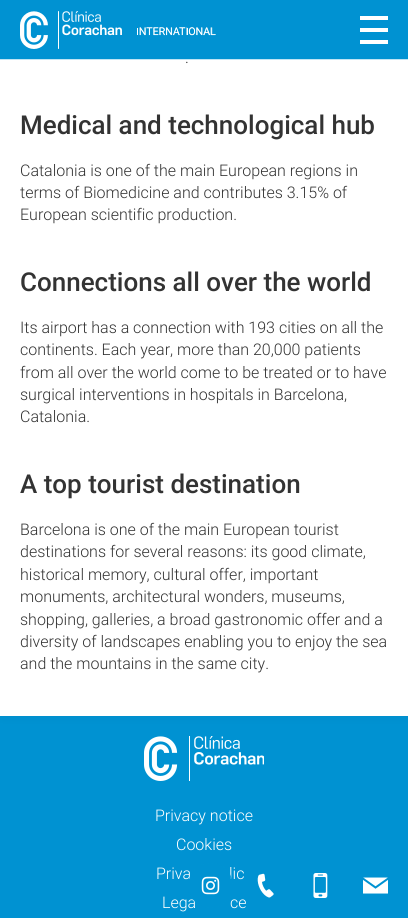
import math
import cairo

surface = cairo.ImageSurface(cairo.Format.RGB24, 408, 918)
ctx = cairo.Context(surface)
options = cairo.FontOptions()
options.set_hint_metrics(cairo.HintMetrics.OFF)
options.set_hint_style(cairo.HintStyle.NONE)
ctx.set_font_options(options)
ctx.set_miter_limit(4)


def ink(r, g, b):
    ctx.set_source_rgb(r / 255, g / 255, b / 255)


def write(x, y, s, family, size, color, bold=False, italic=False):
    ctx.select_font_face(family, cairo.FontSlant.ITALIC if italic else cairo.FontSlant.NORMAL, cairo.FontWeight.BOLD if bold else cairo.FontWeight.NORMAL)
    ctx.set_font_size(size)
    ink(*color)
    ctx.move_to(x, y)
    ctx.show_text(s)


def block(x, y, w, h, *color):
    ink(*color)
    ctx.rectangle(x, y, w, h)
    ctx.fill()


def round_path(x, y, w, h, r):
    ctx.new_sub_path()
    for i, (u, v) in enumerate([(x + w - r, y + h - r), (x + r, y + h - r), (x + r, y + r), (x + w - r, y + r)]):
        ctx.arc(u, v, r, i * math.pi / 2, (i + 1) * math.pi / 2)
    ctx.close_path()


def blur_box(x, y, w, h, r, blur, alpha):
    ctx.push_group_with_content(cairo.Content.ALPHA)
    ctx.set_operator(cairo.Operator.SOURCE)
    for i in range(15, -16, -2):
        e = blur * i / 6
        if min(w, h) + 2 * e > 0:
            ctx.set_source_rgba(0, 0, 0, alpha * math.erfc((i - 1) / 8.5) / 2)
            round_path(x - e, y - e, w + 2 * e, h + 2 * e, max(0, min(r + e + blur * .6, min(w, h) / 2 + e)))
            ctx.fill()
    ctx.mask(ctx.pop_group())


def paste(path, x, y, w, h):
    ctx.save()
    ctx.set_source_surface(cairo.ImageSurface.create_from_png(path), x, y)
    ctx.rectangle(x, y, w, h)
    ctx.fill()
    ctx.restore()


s1 = dict(family="Roboto Light", size=16, color=(51, 51, 51))
s2 = dict(family="Roboto Medium", size=26, color=(51, 51, 51))
s3 = dict(family="Roboto Light", size=16, color=(255, 255, 255))

ink(0, 146, 210)
ctx.paint()
ink(0, 0, 0)
blur_box(0, -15, 408, 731, 0, 5, 0.05)
block(0, 0, 408, 59, 0, 146, 210)
block(0, 59, 408, 1, 191, 228, 244)
paste("pic1.png", 20, 11, 196, 38)
block(360, 16, 28, 4, 255, 255, 255)
block(360, 28, 28, 4, 255, 255, 255)
block(360, 40, 28, 4, 255, 255, 255)
block(0, 60, 408, 656, 255, 255, 255)
write(185, 63, ".", **s1)
write(20, 134, "Medical and technological hub", **s2)
write(20, 176, "Catalonia is one of the main European regions in", **s1)
write(20, 198, "terms of Biomedicine and contributes 3.15% of", **s1)
write(20, 220, "European scientific production.", **s1)
write(20, 291, "Connections all over the world", **s2)
write(20, 333, "Its airport has a connection with 193 cities on all the", **s1)
write(20, 355, "continents. Each year, more than 20,000 patients", **s1)
write(20, 378, "from all over the world come to be treated or to have", **s1)
write(20, 400, "surgical interventions in hospitals in Barcelona,", **s1)
write(20, 422, "Catalonia.", **s1)
write(20, 493, "A top tourist destination", **s2)
write(20, 535, "Barcelona is one of the main European tourist", **s1)
write(20, 557, "destinations for several reasons: its good climate,", **s1)
write(20, 580, "historical memory, cultural offer, important", **s1)
write(20, 602, "monuments, architectural wonders, museums,", **s1)
write(20, 625, "shopping, galleries, a broad gastronomic offer and a", **s1)
write(20, 647, "diversity of landscapes enabling you to enjoy the sea", **s1)
write(20, 669, "and the mountains in the same city.", **s1)
paste("pic2.png", 144, 736, 120, 45)
write(155, 821, "Privacy notice", **s3)
write(176, 850, "Cookies", **s3)
write(156, 879, "Priva", **s3)
write(229, 879, "lic", **s3)
write(162, 908, "Lega", **s3)
write(230, 908, "ce", **s3)
ctx.set_source_rgba(0, 0.573, 0.824, 0.8)
ctx.new_path()
ctx.arc(210.5, 885.5, 22.5, 0, 2 * math.pi)
ctx.fill()
paste("pic3.png", 201, 876, 19, 19)
paste("pic4.png", 257, 873, 17, 25)
paste("pic5.png", 313, 873, 15, 25)
paste("pic6.png", 363, 877, 25, 17)
surface.write_to_png("screenshot.png")
